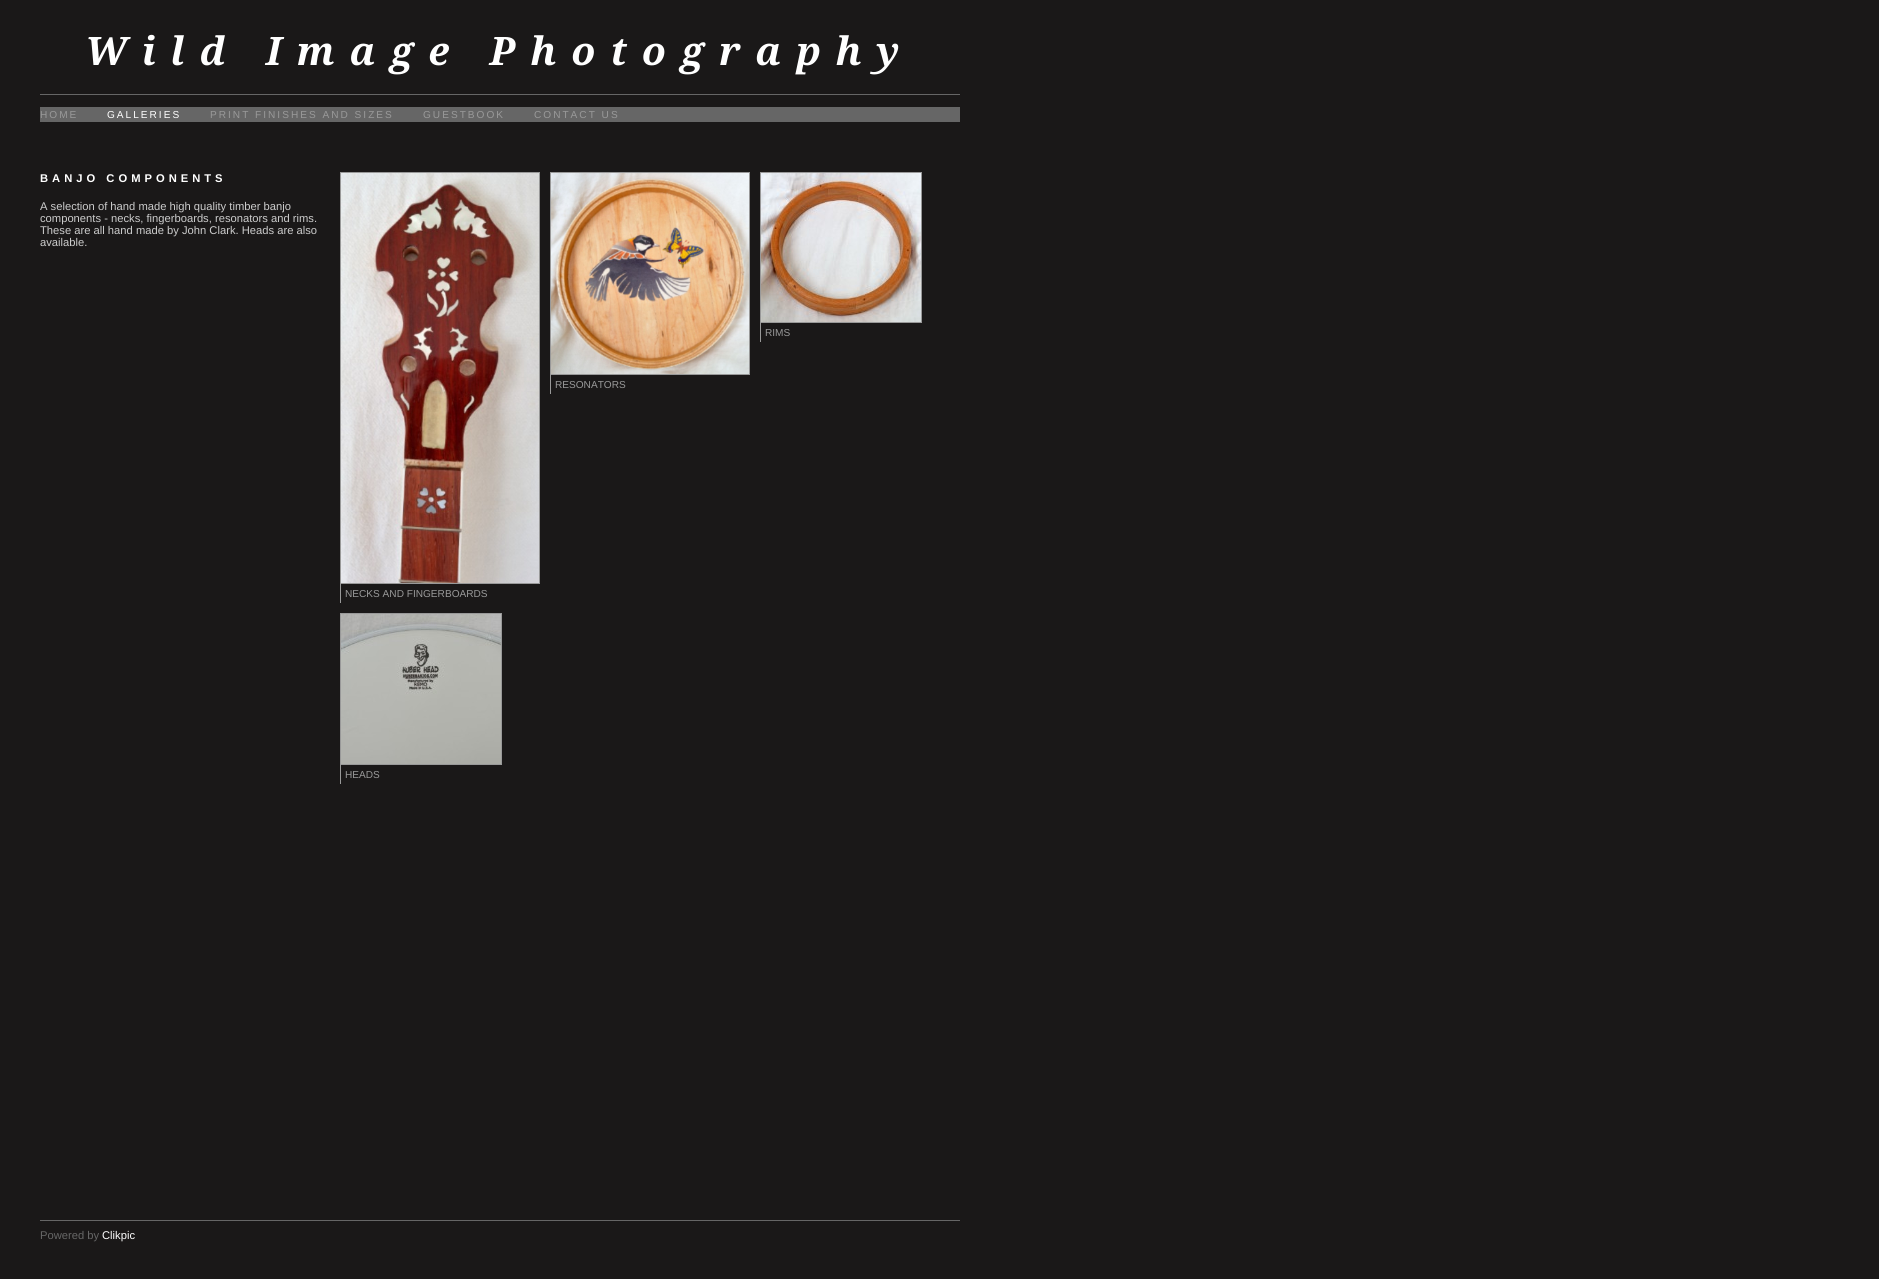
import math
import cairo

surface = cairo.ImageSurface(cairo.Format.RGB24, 1879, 1279)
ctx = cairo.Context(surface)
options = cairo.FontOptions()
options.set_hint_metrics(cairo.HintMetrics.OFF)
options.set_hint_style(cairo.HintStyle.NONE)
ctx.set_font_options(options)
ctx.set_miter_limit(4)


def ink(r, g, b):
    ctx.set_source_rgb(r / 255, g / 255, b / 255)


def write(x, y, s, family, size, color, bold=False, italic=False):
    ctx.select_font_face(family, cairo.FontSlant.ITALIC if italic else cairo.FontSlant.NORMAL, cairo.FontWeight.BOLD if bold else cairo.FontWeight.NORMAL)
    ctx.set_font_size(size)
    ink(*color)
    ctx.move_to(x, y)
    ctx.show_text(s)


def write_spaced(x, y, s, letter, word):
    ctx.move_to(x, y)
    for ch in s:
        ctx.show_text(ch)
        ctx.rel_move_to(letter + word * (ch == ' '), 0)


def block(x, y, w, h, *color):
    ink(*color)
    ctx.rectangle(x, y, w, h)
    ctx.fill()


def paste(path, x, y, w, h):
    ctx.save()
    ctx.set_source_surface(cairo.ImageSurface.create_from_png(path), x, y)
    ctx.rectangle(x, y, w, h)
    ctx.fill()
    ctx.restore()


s1 = dict(family="Liberation Sans", size=11.2, color=(204, 204, 204))
s2 = dict(family="Liberation Sans", size=10.1, color=(153, 153, 153))
s3 = dict(family="Liberation Sans", size=11.2, color=(102, 102, 102))
s4 = dict(family="Liberation Sans", size=11.2, color=(255, 255, 255))

ink(26, 24, 24)
ctx.paint()
block(40, 94, 920, 1, 102, 102, 102)
ctx.select_font_face("Droid Serif", cairo.FontSlant.ITALIC, cairo.FontWeight.BOLD)
ctx.set_font_size(39.2)
ink(255, 255, 255)
write_spaced(85, 65, "Wild Image Photography", 15, 0)
block(40, 107, 920, 15, 102, 102, 102)
ctx.select_font_face("Liberation Sans")
ctx.set_font_size(10.1)
ink(153, 153, 153)
write_spaced(40, 118, "HOME", 2, 0)
ink(255, 255, 255)
write_spaced(107, 118, "GALLERIES", 2, 0)
ink(153, 153, 153)
write_spaced(210, 118, "PRINT FINISHES AND SIZES", 2, 0)
write_spaced(423, 118, "GUESTBOOK", 2, 0)
write_spaced(534, 118, "CONTACT US", 2, 0)
ctx.select_font_face("Liberation Sans", cairo.FontSlant.NORMAL, cairo.FontWeight.BOLD)
ctx.set_font_size(11.2)
ink(255, 255, 255)
write_spaced(40, 182, "BANJO COMPONENTS", 4, 0)
write(40, 210, "A selection of hand made high quality timber banjo", **s1)
write(40, 222, "components - necks, fingerboards, resonators and rims.", **s1)
write(40, 234, "These are all hand made by John Clark. Heads are also", **s1)
write(40, 246, "available.", **s1)
ctx.rectangle(760.5, 172.5, 161, 150)
ink(153, 153, 153)
ctx.set_line_width(1)
ctx.stroke()
paste("pic1.png", 761, 173, 160, 149)
block(760, 323, 1, 19, 153, 153, 153)
write(765, 336, "RIMS", **s2)
ctx.rectangle(550.5, 172.5, 199, 202)
ctx.stroke()
paste("pic2.png", 551, 173, 198, 201)
block(550, 375, 1, 19, 153, 153, 153)
write(555, 388, "RESONATORS", **s2)
ctx.rectangle(340.5, 172.5, 199, 411)
ctx.stroke()
paste("pic3.png", 341, 173, 198, 410)
block(340, 584, 1, 19, 153, 153, 153)
write(345, 597, "NECKS AND FINGERBOARDS", **s2)
ctx.rectangle(340.5, 613.5, 161, 151)
ctx.stroke()
paste("pic4.png", 341, 614, 160, 150)
block(340, 765, 1, 19, 153, 153, 153)
write(345, 778, "HEADS", **s2)
block(40, 1220, 920, 1, 102, 102, 102)
write(40, 1239, "Powered by", **s3)
write(102, 1239, "Clikpic", **s4)
surface.write_to_png("screenshot.png")
